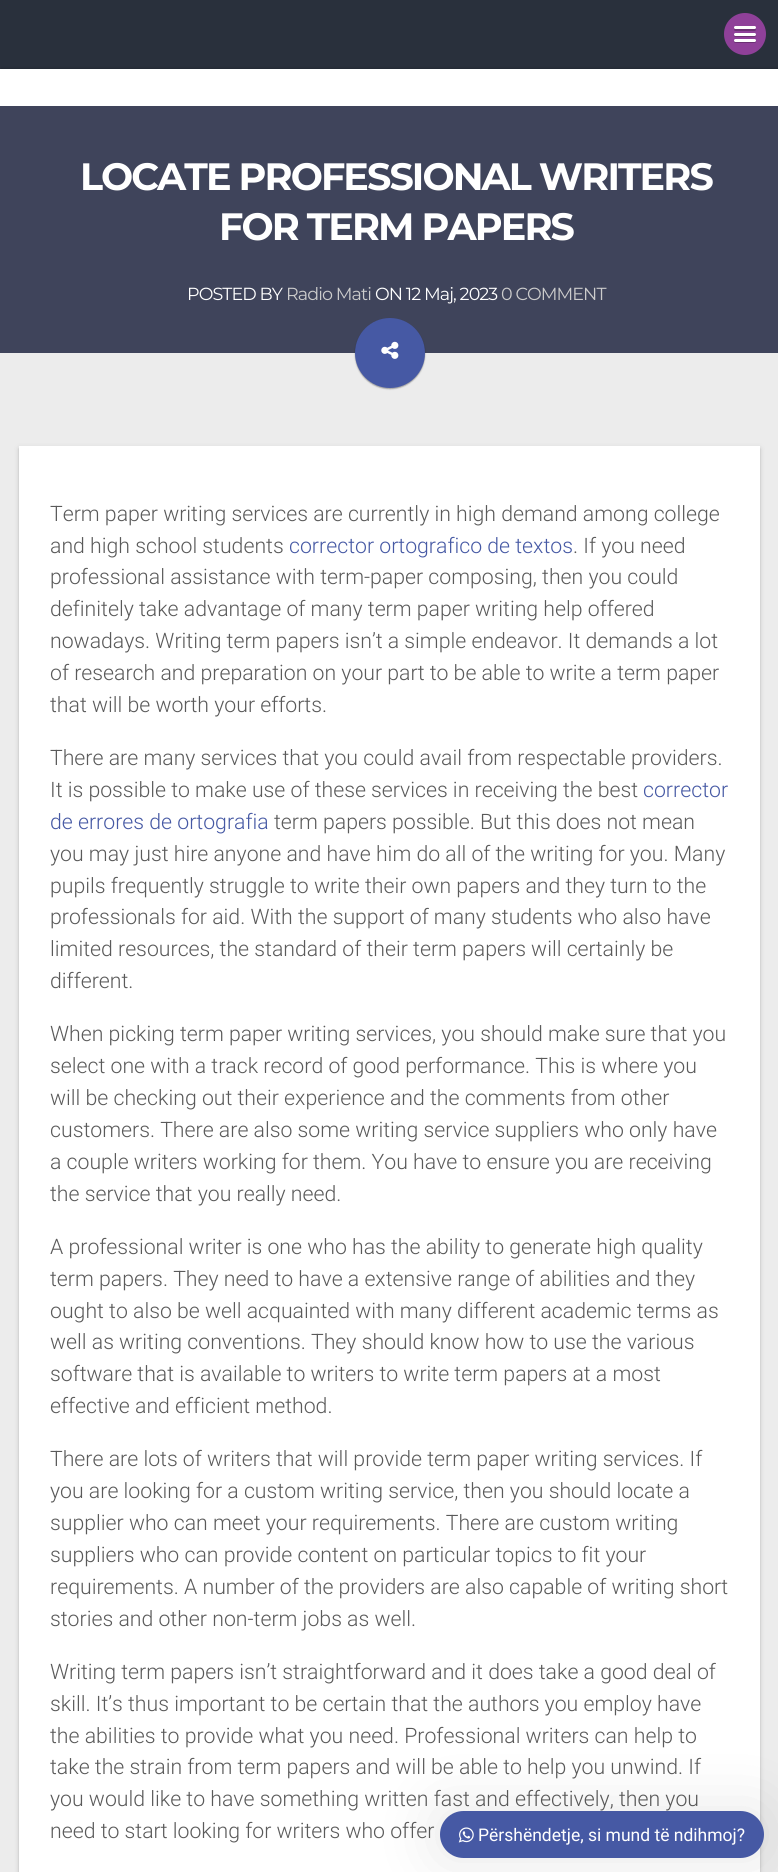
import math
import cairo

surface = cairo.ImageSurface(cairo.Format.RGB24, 778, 1872)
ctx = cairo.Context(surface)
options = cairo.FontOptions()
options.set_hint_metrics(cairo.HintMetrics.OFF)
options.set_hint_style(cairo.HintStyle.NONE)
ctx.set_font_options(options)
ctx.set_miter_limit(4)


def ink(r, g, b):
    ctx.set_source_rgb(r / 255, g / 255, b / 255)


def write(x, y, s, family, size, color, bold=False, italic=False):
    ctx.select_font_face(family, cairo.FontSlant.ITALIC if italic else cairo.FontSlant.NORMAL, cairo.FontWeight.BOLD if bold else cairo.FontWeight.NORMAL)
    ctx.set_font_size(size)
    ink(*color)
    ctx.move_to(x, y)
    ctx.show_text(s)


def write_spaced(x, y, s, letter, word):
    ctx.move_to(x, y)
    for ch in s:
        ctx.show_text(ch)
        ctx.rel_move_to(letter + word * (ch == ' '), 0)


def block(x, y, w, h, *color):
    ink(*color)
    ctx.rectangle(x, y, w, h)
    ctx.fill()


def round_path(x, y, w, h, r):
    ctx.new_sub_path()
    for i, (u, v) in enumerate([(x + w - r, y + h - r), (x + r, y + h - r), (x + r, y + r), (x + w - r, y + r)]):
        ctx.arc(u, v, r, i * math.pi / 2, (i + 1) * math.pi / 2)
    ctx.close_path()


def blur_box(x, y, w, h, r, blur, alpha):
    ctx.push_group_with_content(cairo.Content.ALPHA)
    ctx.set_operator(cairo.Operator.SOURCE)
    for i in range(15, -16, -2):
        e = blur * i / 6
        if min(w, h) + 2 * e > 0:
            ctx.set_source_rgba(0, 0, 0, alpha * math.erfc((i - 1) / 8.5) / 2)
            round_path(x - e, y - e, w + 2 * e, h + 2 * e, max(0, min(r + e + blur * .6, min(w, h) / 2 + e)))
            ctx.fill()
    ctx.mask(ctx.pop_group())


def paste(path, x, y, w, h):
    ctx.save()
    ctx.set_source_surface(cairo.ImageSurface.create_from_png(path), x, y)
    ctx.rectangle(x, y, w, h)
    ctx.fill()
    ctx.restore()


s1 = dict(family="Roboto Light", size=21.25, color=(90, 90, 90))
s2 = dict(family="Roboto Light", size=21.25, color=(70, 89, 164))
s3 = dict(family="Roboto", size=17.5, color=(255, 255, 255))

ink(255, 255, 255)
ctx.paint()
block(0, 0, 778, 69, 41, 48, 60)
ink(143, 64, 153)
ctx.arc(745, 34, 21, 0, 2 * math.pi)
ctx.fill()
ink(107, 48, 115)
ctx.new_path()
ctx.move_to(734.5, 28.5)
ctx.line_to(734, 30)
ctx.curve_to(734.5, 31.5, 737.5, 31, 738.5, 31)
ctx.line_to(751.5, 31)
ctx.curve_to(752.5, 31, 755.5, 31.5, 756, 30)
ctx.line_to(755.5, 28.5)
ctx.close_path()
ctx.fill()
ink(255, 255, 255)
round_path(734, 26, 22, 3, 1.5)
ctx.fill()
ink(107, 48, 115)
ctx.new_path()
ctx.move_to(734, 34.5)
ctx.curve_to(732.5, 37.5, 738, 37, 738.5, 37)
ctx.line_to(751.5, 37)
ctx.curve_to(752, 37, 757.5, 37.5, 756, 34.5)
ctx.curve_to(755, 35, 735, 35, 734, 34.5)
ctx.close_path()
ctx.fill()
ink(255, 255, 255)
round_path(734, 33, 22, 3, 1.5)
ctx.fill()
ink(107, 48, 115)
ctx.new_path()
ctx.move_to(734, 41)
ctx.curve_to(733, 43.5, 738, 43, 738.5, 43)
ctx.line_to(751.5, 43)
ctx.curve_to(752, 43, 757, 43.5, 756, 41)
ctx.curve_to(755, 41.5, 735, 41.5, 734, 41)
ctx.close_path()
ctx.fill()
ink(255, 255, 255)
round_path(734, 39, 22, 3, 1.5)
ctx.fill()
ctx.save()
ctx.rectangle(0, 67, 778, 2)
ctx.clip()
ink(0, 0, 0)
blur_box(0, 70, 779, 38, 0, 2.5, 0.24)
ctx.restore()
ctx.save()
ctx.rectangle(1, 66, 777, 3)
ctx.clip()
ink(0, 0, 0)
blur_box(0, 70, 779, 38, 0, 4, 0.12)
ctx.restore()
block(0, 106, 778, 247, 63, 68, 91)
ctx.select_font_face("Montserrat", cairo.FontSlant.NORMAL, cairo.FontWeight.BOLD)
ctx.set_font_size(38.1)
ink(255, 255, 255)
write_spaced(80, 190, "LOCATE PROFESSIONAL WRITERS", -1.9, 0)
write_spaced(219, 240, "FOR TERM PAPERS", -1.9, 0)
ctx.select_font_face("Montserrat")
ctx.set_font_size(17.5)
write_spaced(187, 300, "POSTED BY", -0.9, 0)
ink(204, 204, 204)
write_spaced(286, 300, "Radio Mati", -0.9, 0)
ink(255, 255, 255)
write_spaced(375, 300, "ON 12 Maj, 2023", -0.9, 0)
ink(204, 204, 204)
write_spaced(501, 300, "0 COMMENT", -0.9, 0)
block(0, 353, 778, 1519, 236, 236, 236)
ink(0, 0, 0)
blur_box(355, 319, 70, 70, 35, 0.5, 0.24)
blur_box(355, 319, 70, 70, 35, 1, 0.12)
ink(70, 89, 164)
ctx.arc(390, 353, 35, 0, 2 * math.pi)
ctx.fill()
paste("pic1.png", 381, 341, 18, 18)
ink(0, 0, 0)
blur_box(19, 448, 741, 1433, 0, 3, 0.12)
blur_box(19, 449, 741, 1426, 0, 1, 0.14)
block(19, 446, 741, 1426, 255, 255, 255)
write(50, 521, "Term paper writing services are currently in high demand among college", **s1)
write(50, 553, "and high school students", **s1)
write(289, 553, "corrector ortografico de textos", **s2)
write(573, 553, ". If you need", **s1)
write(50, 584, "professional assistance with term-paper composing, then you could", **s1)
write(50, 616, "definitely take advantage of many term paper writing help offered", **s1)
write(50, 648, "nowadays. Writing term papers isn’t a simple endeavor. It demands a lot", **s1)
write(50, 680, "of research and preparation on your part to be able to write a term paper", **s1)
write(50, 712, "that will be worth your efforts.", **s1)
write(50, 765, "There are many services that you could avail from respectable providers.", **s1)
write(50, 797, "It is possible to make use of these services in receiving the best", **s1)
write(643, 797, "corrector", **s2)
write(50, 829, "de errores de ortografia", **s2)
write(274, 829, "term papers possible. But this does not mean", **s1)
write(50, 861, "you may just hire anyone and have him do all of the writing for you. Many", **s1)
write(50, 893, "pupils frequently struggle to write their own papers and they turn to the", **s1)
write(50, 924, "professionals for aid. With the support of many students who also have", **s1)
write(50, 956, "limited resources, the standard of their term papers will certainly be", **s1)
write(50, 988, "different.", **s1)
write(50, 1041, "When picking term paper writing services, you should make sure that you", **s1)
write(50, 1073, "select one with a track record of good performance. This is where you", **s1)
write(50, 1105, "will be checking out their experience and the comments from other", **s1)
write(50, 1137, "customers. There are also some writing service suppliers who only have", **s1)
write(50, 1169, "a couple writers working for them. You have to ensure you are receiving", **s1)
write(50, 1201, "the service that you really need.", **s1)
write(50, 1254, "A professional writer is one who has the ability to generate high quality", **s1)
write(50, 1286, "term papers. They need to have a extensive range of abilities and they", **s1)
write(50, 1318, "ought to also be well acquainted with many different academic terms as", **s1)
write(50, 1349, "well as writing conventions. They should know how to use the various", **s1)
write(50, 1381, "software that is available to writers to write term papers at a most", **s1)
write(50, 1413, "effective and efficient method.", **s1)
write(50, 1466, "There are lots of writers that will provide term paper writing services. If", **s1)
write(50, 1498, "you are looking for a custom writing service, then you should locate a", **s1)
write(50, 1530, "supplier who can meet your requirements. There are custom writing", **s1)
write(50, 1562, "suppliers who can provide content on particular topics to fit your", **s1)
write(50, 1594, "requirements. A number of the providers are also capable of writing short", **s1)
write(50, 1626, "stories and other non-term jobs as well.", **s1)
write(50, 1679, "Writing term papers isn’t straightforward and it does take a good deal of", **s1)
write(50, 1711, "skill. It’s thus important to be certain that the authors you employ have", **s1)
write(50, 1743, "the abilities to provide what you need. Professional writers can help to", **s1)
write(50, 1774, "take the strain from term papers and will be able to help you unwind. If", **s1)
write(50, 1806, "you would like to have something written fast and effectively, then you", **s1)
write(50, 1838, "need to start looking for writers who offer", **s1)
ink(0, 0, 0)
blur_box(440, 1811, 324, 47, 23.5, 31, 0.1)
ink(70, 89, 164)
round_path(440, 1811, 324, 47, 23.5)
ctx.fill()
paste("pic2.png", 458, 1827, 16, 16)
write(478, 1841, "Përshëndetje, si mund të ndihmoj?", **s3)
surface.write_to_png("screenshot.png")
